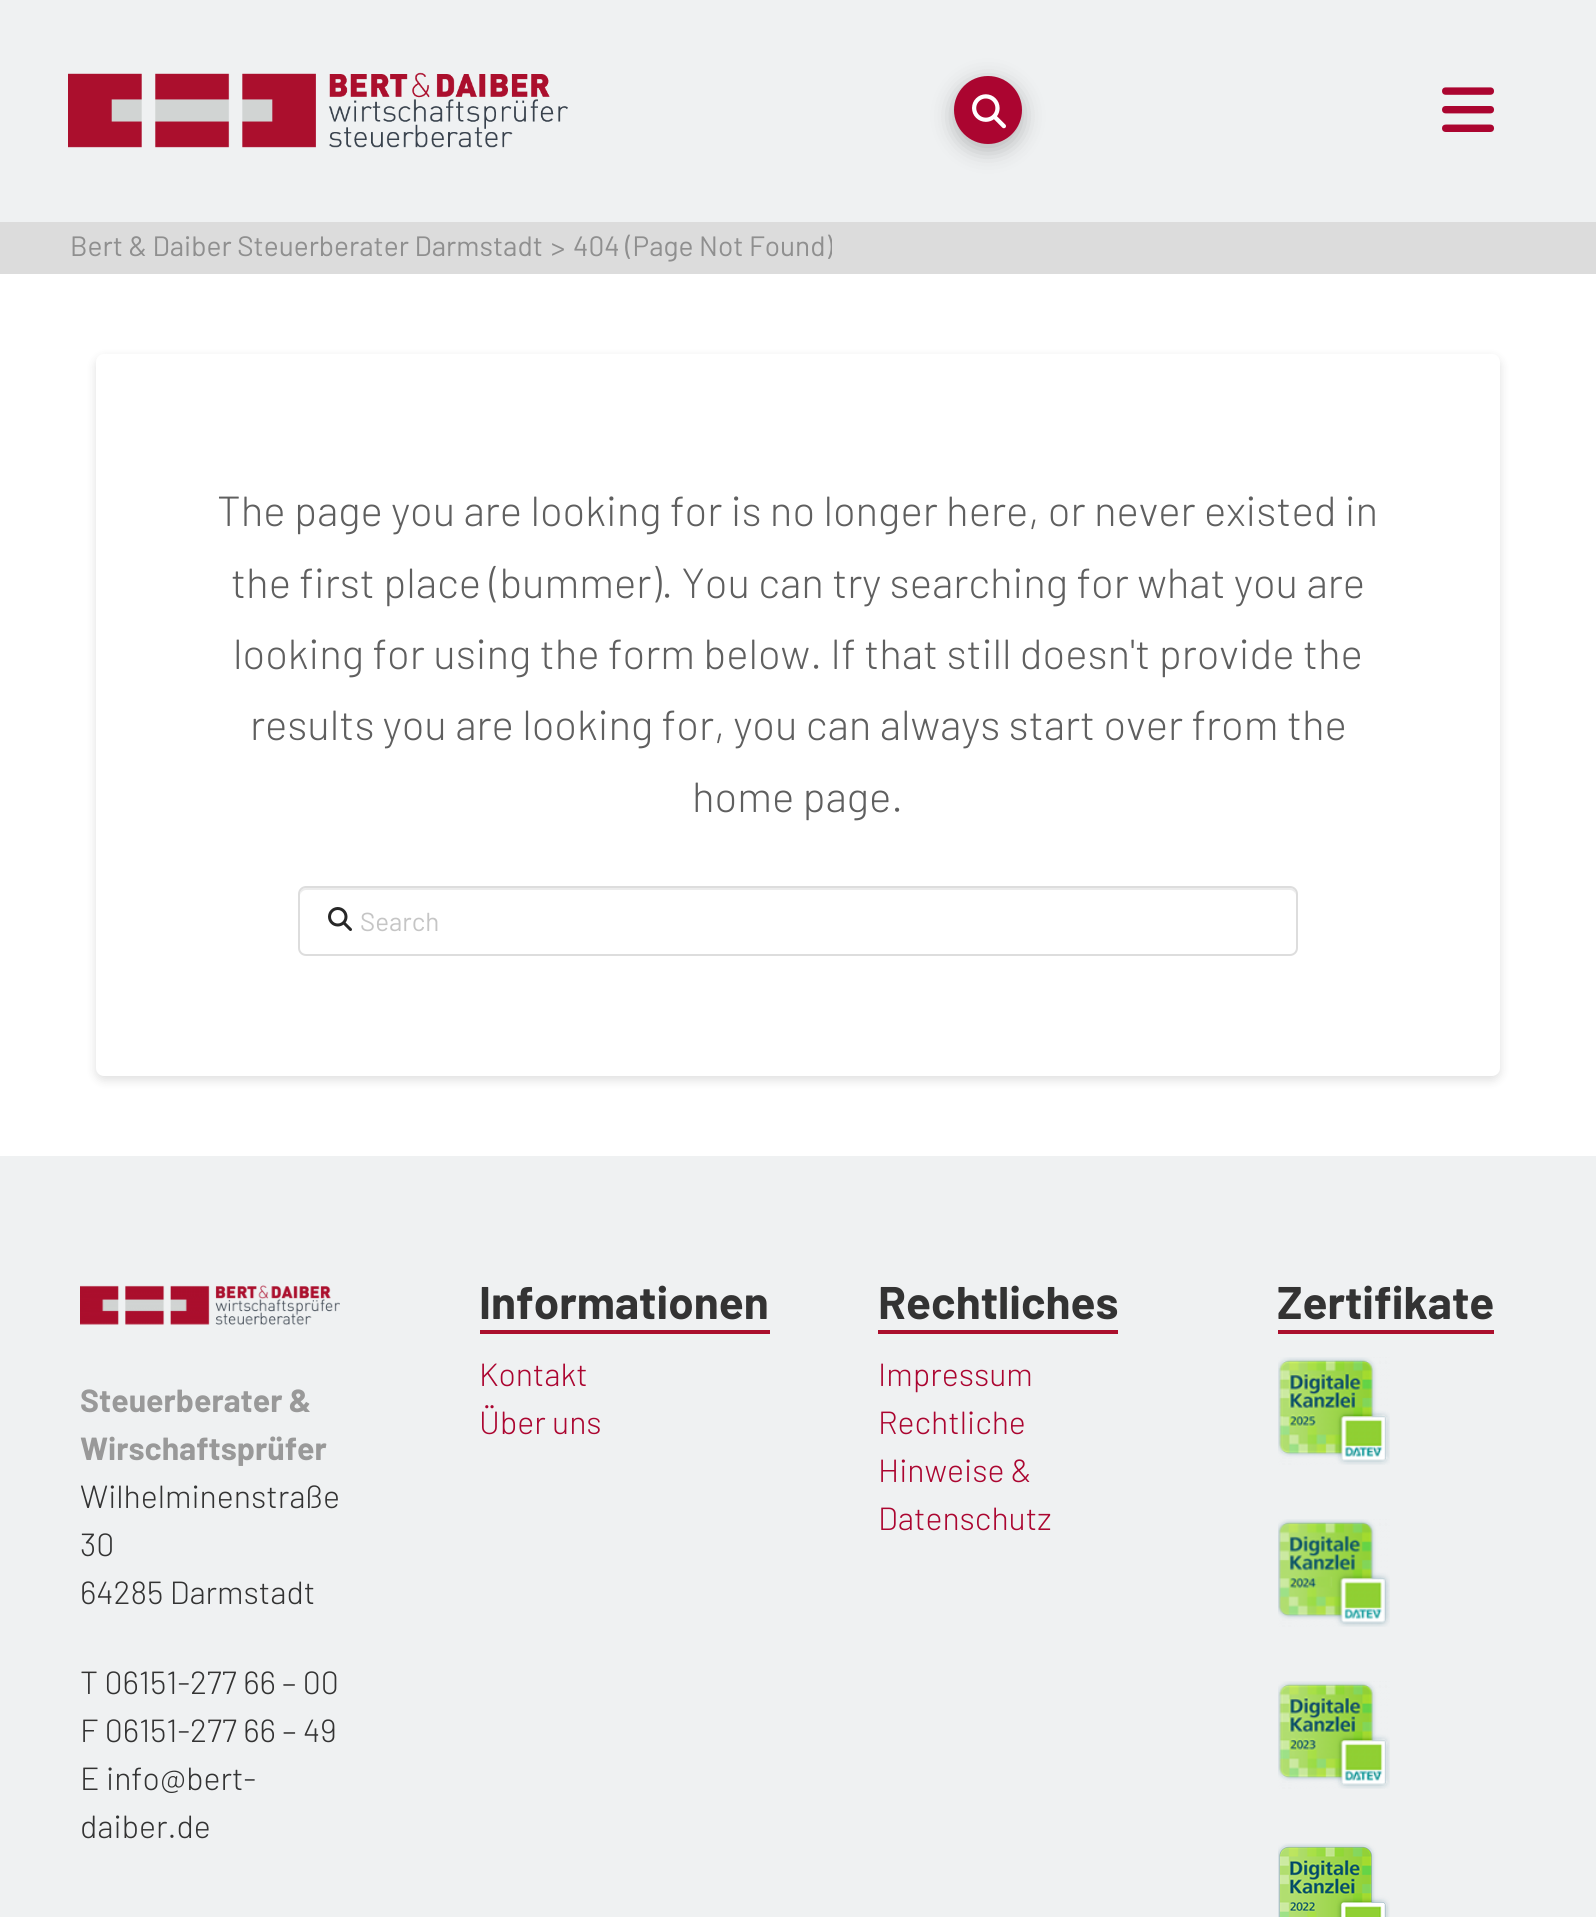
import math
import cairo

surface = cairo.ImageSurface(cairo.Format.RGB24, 1596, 1917)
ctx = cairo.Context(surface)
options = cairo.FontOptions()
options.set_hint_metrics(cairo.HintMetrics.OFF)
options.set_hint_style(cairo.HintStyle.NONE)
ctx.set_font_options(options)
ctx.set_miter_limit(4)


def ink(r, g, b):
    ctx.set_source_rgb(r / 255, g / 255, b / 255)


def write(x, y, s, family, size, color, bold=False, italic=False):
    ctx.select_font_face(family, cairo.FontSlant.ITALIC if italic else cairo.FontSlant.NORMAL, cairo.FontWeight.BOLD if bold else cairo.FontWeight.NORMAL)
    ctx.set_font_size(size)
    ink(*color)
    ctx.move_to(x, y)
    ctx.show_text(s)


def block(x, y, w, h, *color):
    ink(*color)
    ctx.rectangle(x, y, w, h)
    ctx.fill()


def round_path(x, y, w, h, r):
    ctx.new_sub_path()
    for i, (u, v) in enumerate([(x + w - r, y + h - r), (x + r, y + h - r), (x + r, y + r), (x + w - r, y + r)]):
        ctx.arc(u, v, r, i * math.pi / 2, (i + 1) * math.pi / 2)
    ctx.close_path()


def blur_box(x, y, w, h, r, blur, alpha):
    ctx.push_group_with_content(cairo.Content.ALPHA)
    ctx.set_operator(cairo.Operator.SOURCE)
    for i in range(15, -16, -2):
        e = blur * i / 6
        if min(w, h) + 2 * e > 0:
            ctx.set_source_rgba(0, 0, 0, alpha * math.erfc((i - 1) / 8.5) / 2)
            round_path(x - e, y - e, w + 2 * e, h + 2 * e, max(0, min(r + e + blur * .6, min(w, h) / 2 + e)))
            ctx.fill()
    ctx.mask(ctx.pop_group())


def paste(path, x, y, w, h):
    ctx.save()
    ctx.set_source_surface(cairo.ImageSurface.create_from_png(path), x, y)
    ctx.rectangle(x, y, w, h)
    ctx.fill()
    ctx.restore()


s1 = dict(family="Barlow", size=28, color=(143, 143, 143))
s2 = dict(family="Barlow Light", size=42, color=(95, 95, 95))
s3 = dict(family="Barlow", size=26, color=(197, 197, 197))
s4 = dict(family="Barlow", size=45.75, color=(51, 51, 51), bold=True)
s5 = dict(family="Barlow Light", size=32, color=(171, 5, 48))
s6 = dict(family="Barlow", size=32, color=(153, 153, 153), bold=True)
s7 = dict(family="Barlow Light", size=32, color=(51, 51, 51))

ink(255, 255, 255)
ctx.paint()
block(0, 0, 1596, 222, 239, 241, 242)
paste("pic1.png", 68, 72, 500, 76)
ink(0, 0, 0)
blur_box(954, 82, 68, 68, 34, 11, 0.25)
ink(171, 5, 48)
ctx.arc(988, 110, 34, 0, 2 * math.pi)
ctx.fill()
paste("pic2.png", 972, 94, 34, 35)
paste("pic3.png", 1442, 87, 53, 45)
block(0, 222, 1596, 52, 220, 220, 220)
write(70, 256, "Bert & Daiber Steuerberater Darmstadt", **s1)
write(551, 257, ">", **s1)
ctx.save()
ctx.rectangle(572, 228, 260, 36)
ctx.clip()
write(573, 256, "404 (Page Not Found)", **s1)
ctx.restore()
ink(0, 0, 0)
blur_box(96, 358, 1404, 722, 8, 5, 0.13)
ink(255, 255, 255)
round_path(96, 354, 1404, 722, 8)
ctx.fill()
write(217, 526, "The page you are looking for is no longer here, or never existed in", **s2)
write(231, 598, "the first place (bummer). You can try searching for what you are", **s2)
write(233, 669, "looking for using the form below. If that still doesn't provide the", **s2)
write(250, 740, "results you are looking for, you can always start over from the", **s2)
write(692, 812, "home page.", **s2)
ink(236, 236, 236)
ctx.new_path()
ctx.move_to(306, 890)
ctx.line_to(1290, 890)
ctx.curve_to(1293, 890, 1296, 893, 1296, 896)
ctx.curve_to(1296, 892, 1295, 888, 1290, 888)
ctx.line_to(306, 888)
ctx.curve_to(301, 888, 300, 892, 300, 896)
ctx.curve_to(300, 893, 303, 890, 306, 890)
ctx.close_path()
ctx.fill()
round_path(299, 887, 998, 68, 7)
ink(221, 221, 221)
ctx.stroke()
paste("pic4.png", 328, 907, 24, 24)
write(360, 931, "Search", **s3)
block(0, 1156, 1596, 761, 239, 241, 242)
block(480, 1330, 290, 4, 171, 15, 45)
write(479, 1319, "Informationen", **s4)
write(479, 1386, "Kontakt", **s5)
write(479, 1434, "Über uns", **s5)
block(878, 1330, 240, 4, 171, 15, 45)
write(878, 1319, "Rechtliches", **s4)
write(878, 1386, "Impressum", **s5)
write(878, 1434, "Rechtliche", **s5)
write(878, 1482, "Hinweise &", **s5)
write(878, 1530, "Datenschutz", **s5)
block(1278, 1330, 216, 4, 171, 15, 45)
write(1277, 1319, "Zertifikate", **s4)
paste("pic5.png", 1278, 1357, 112, 108)
paste("pic6.png", 1278, 1519, 112, 108)
paste("pic7.png", 1278, 1681, 112, 108)
paste("pic8.png", 1278, 1843, 112, 74)
paste("pic9.png", 80, 1285, 260, 40)
write(80, 1412, "Steuerberater &", **s6)
write(80, 1460, "Wirschaftsprüfer", **s6)
write(80, 1508, "Wilhelminenstraße", **s7)
write(80, 1556, "30", **s7)
write(80, 1604, "64285 Darmstadt", **s7)
write(80, 1694, "T 06151-277 66 – 00", **s7)
write(80, 1742, "F 06151-277 66 – 49", **s7)
write(80, 1790, "E info@bert-", **s7)
write(80, 1838, "daiber.de", **s7)
surface.write_to_png("screenshot.png")
